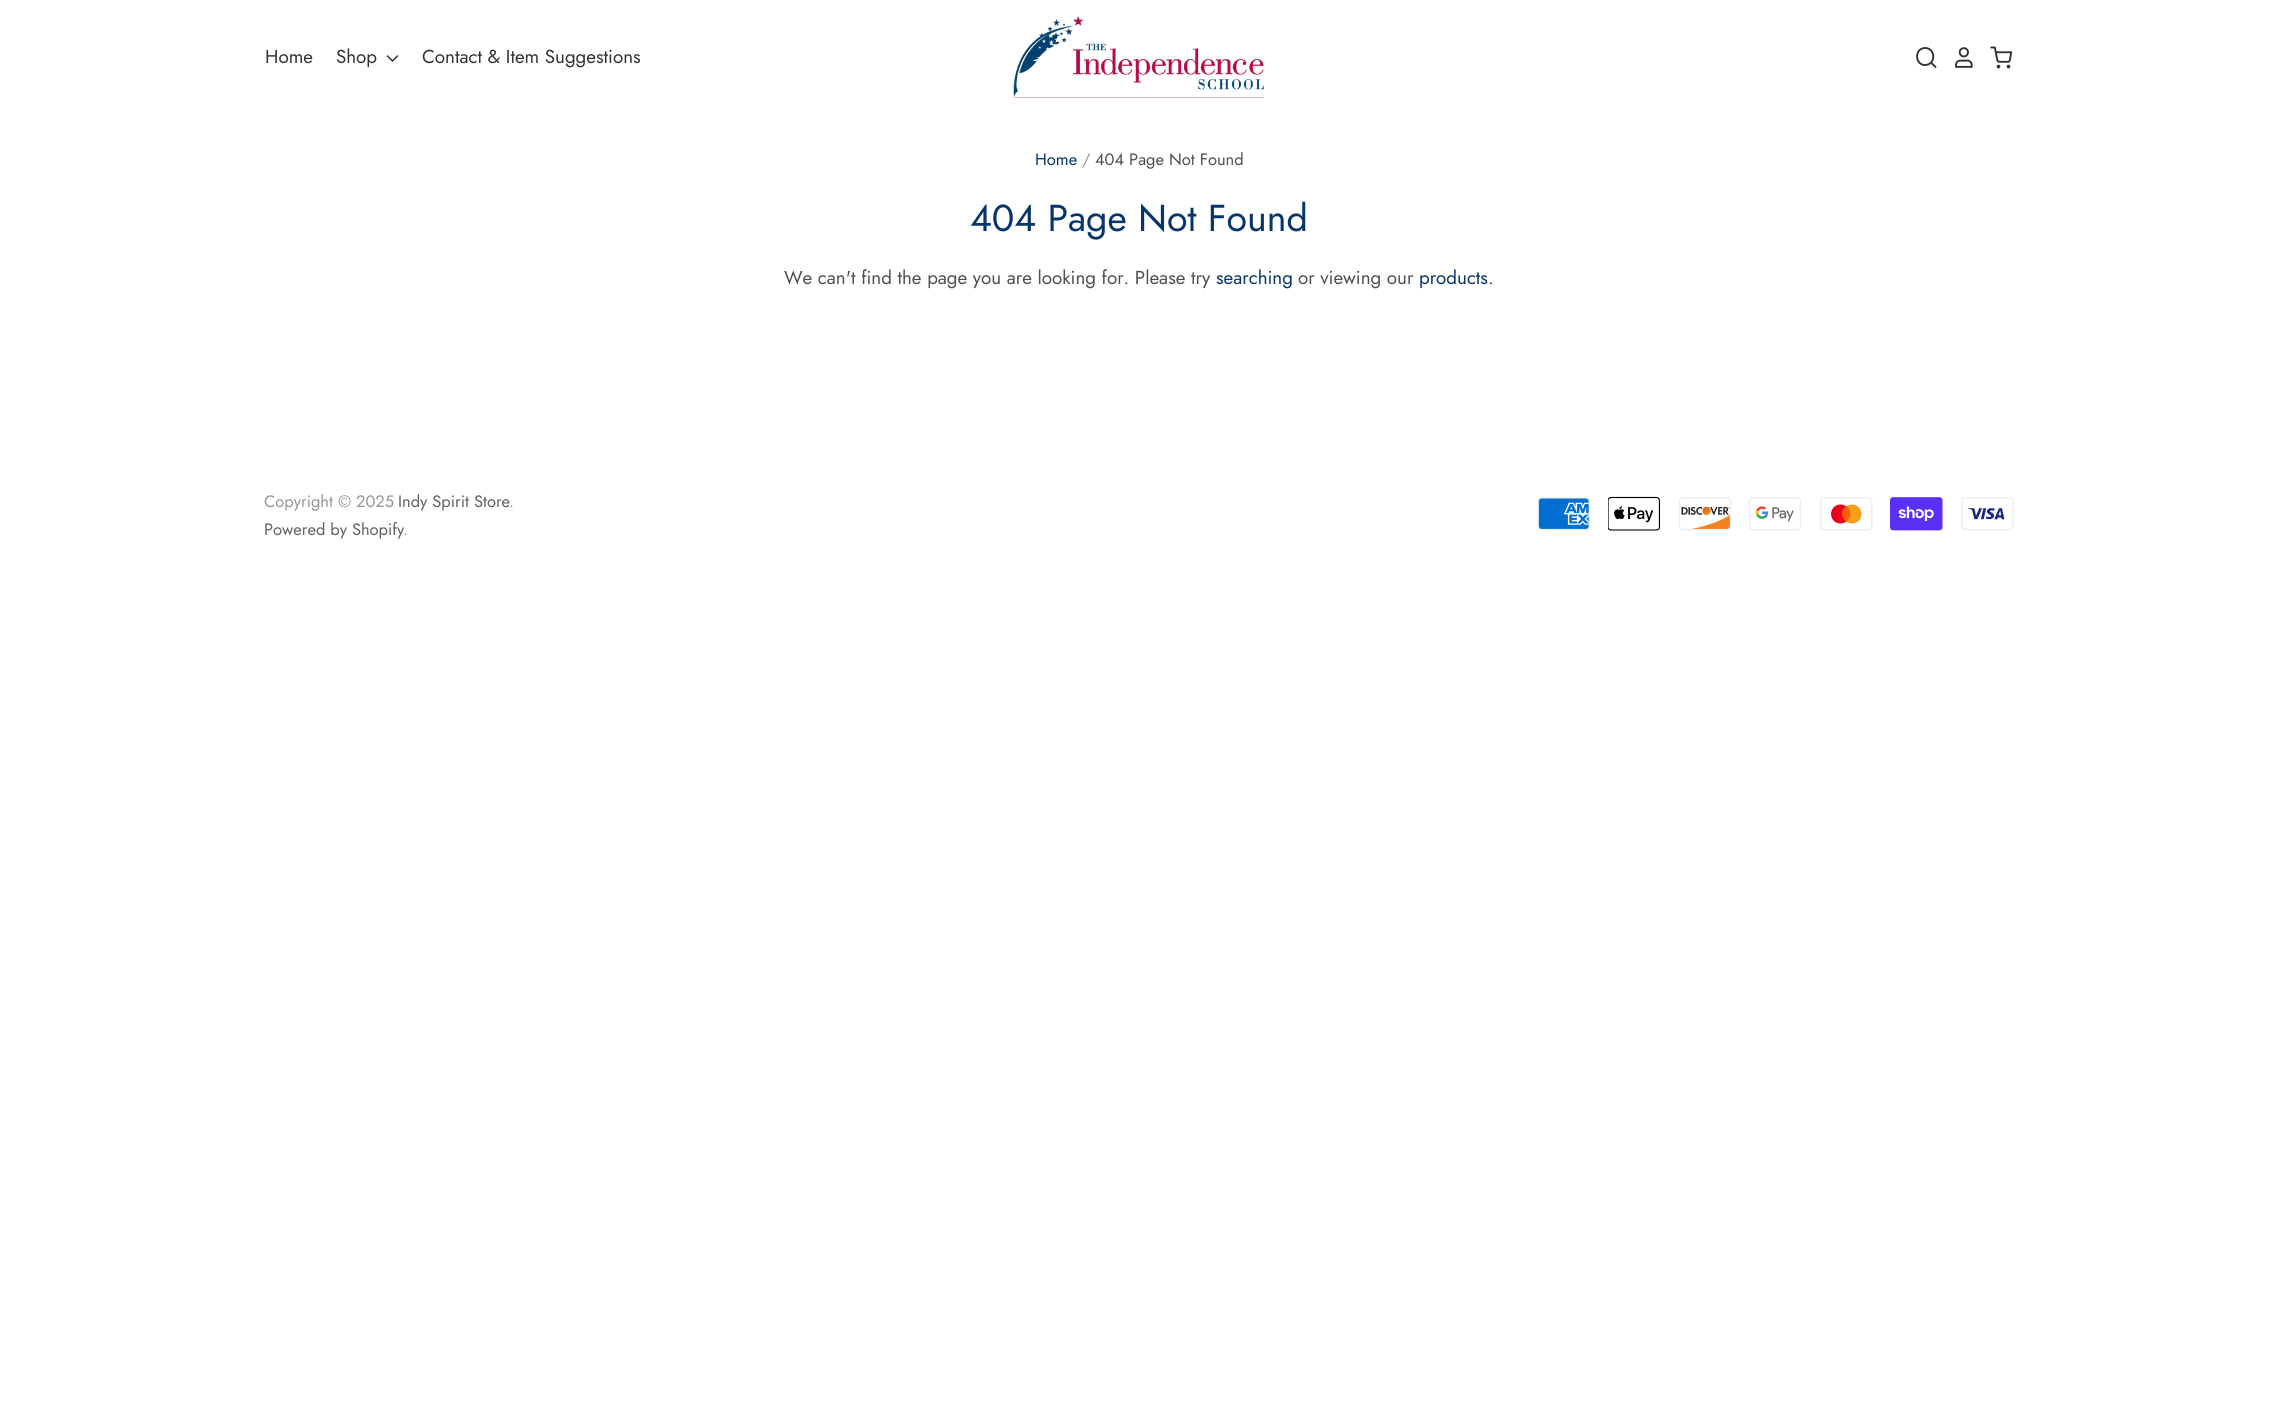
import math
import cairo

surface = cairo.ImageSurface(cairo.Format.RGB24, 2277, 1420)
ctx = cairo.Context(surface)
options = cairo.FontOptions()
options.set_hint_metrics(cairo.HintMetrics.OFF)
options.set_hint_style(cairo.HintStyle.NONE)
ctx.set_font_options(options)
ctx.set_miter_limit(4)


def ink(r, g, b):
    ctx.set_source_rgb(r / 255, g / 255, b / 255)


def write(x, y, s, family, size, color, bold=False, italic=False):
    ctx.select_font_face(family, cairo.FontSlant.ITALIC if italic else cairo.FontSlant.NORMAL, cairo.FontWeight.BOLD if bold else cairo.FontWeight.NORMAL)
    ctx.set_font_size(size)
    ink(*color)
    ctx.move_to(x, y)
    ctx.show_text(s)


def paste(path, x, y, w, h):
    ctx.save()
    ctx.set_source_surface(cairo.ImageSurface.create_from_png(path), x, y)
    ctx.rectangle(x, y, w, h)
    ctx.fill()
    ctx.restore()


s1 = dict(family="Jost", size=18.75, color=(51, 51, 51))
s2 = dict(family="Jost", size=16.5, color=(6, 53, 106))
s3 = dict(family="Jost", size=16.5, color=(149, 149, 149))
s4 = dict(family="Jost", size=16.5, color=(79, 79, 79))
s5 = dict(family="Jost", size=37.5, color=(6, 53, 106))
s6 = dict(family="Jost", size=18.75, color=(79, 79, 79))
s7 = dict(family="Jost", size=18.75, color=(6, 53, 106))
s8 = dict(family="Jost", size=16.5, color=(97, 97, 97))

ink(255, 255, 255)
ctx.paint()
write(265, 63, "Home", **s1)
write(336, 63, "Shop", **s1)
ctx.new_path()
ctx.move_to(387.5, 56)
ctx.line_to(392.5, 61)
ctx.line_to(397.5, 56)
ctx.set_line_width(1.5)
ctx.set_line_cap(cairo.LineCap.ROUND)
ctx.set_line_join(cairo.LineJoin.ROUND)
ctx.stroke()
write(422, 63, "Contact & Item Suggestions", **s1)
paste("pic1.png", 1013, 16, 251, 82)
ctx.new_path()
ctx.move_to(1925, 48)
ctx.curve_to(1914.5, 48, 1914.5, 65, 1925, 65)
ctx.curve_to(1936, 65, 1936, 48, 1925, 48)
ctx.close_path()
ctx.move_to(1935.5, 67)
ctx.line_to(1931, 62.5)
ctx.close_path()
ctx.set_line_width(1.9)
ctx.stroke()
paste("pic2.png", 1955, 47, 18, 21)
paste("pic3.png", 1990, 46, 23, 23)
write(1035, 165, "Home", **s2)
write(1082, 165, "/", **s3)
write(1095, 165, "404 Page Not Found", **s4)
write(970, 231, "404 Page Not Found", **s5)
write(784, 284, "We can't find the page you are looking for. Please try", **s6)
write(1216, 284, "searching", **s7)
write(1298, 284, "or viewing our", **s6)
write(1419, 284, "products", **s7)
write(1488, 284, ".", **s6)
write(264, 507, "Copyright © 2025", **s3)
write(398, 507, "Indy Spirit Store", **s8)
write(509, 507, ".", **s3)
write(264, 535, "Powered by Shopify", **s8)
write(403, 535, ".", **s3)
paste("pic4.png", 1538, 497, 52, 34)
paste("pic5.png", 1608, 496, 52, 35)
paste("pic6.png", 1679, 497, 52, 34)
paste("pic7.png", 1749, 497, 52, 34)
paste("pic8.png", 1820, 497, 53, 34)
paste("pic9.png", 1890, 497, 53, 34)
paste("pic10.png", 1961, 497, 53, 34)
surface.write_to_png("screenshot.png")
